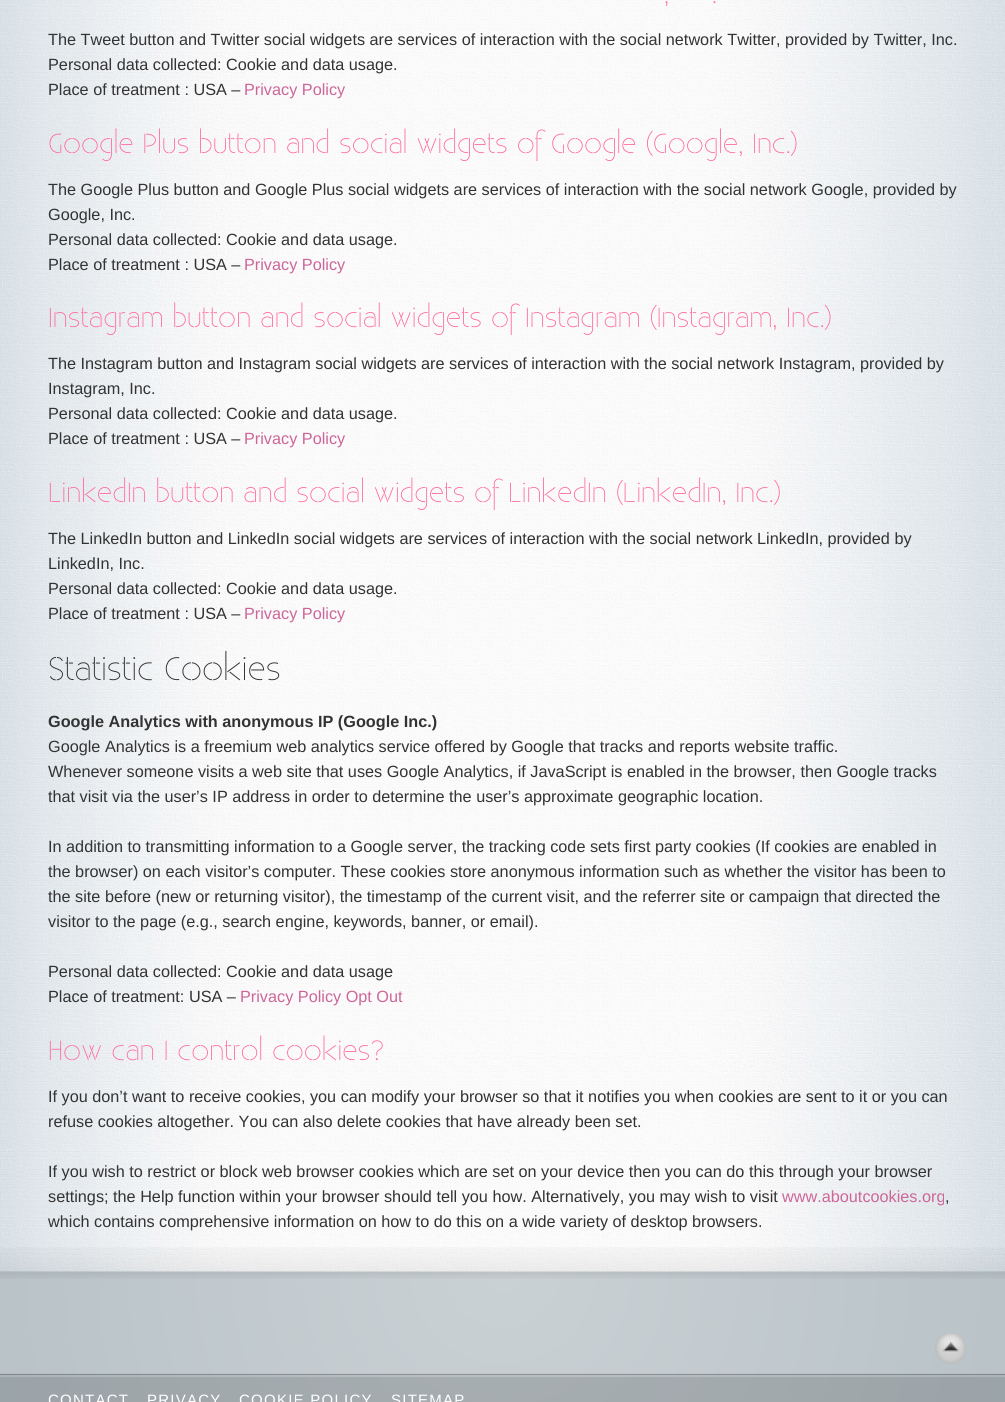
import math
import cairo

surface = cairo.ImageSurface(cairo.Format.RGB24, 1005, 1402)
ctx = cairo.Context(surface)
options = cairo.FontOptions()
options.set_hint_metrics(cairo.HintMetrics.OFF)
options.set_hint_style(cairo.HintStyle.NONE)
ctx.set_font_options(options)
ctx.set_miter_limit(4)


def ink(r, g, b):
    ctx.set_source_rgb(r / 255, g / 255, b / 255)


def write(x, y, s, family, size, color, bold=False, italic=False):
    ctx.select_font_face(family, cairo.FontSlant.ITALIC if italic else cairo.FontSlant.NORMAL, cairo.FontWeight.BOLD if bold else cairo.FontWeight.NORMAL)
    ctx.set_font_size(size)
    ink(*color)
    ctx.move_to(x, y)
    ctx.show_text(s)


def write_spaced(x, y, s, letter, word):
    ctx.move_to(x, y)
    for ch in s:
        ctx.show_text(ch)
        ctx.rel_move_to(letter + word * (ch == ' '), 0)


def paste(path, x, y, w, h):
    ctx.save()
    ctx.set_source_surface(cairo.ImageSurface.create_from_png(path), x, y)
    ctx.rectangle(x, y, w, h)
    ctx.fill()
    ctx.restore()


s1 = dict(family="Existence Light", size=27.5, color=(255, 102, 153))
s2 = dict(family="Liberation Sans", size=16.25, color=(51, 51, 51))
s3 = dict(family="Liberation Sans", size=16.25, color=(204, 102, 153))
s4 = dict(family="Existence Light", size=32.5, color=(51, 51, 51))
s5 = dict(family="Liberation Sans", size=16.25, color=(51, 51, 51), bold=True)

ink(255, 255, 255)
ctx.paint()
gradient = cairo.RadialGradient(503, 1271, 0, 503, 1271, 538)
gradient.add_color_stop_rgba(0, 0.792, 0.82, 0.835, 1)
gradient.add_color_stop_rgba(1, 0.722, 0.761, 0.78, 1)
ctx.set_source(gradient)
ctx.rectangle(0, 1271, 1005, 131)
ctx.fill()
paste("pic2.png", 0, 1271, 1005, 8)
paste("pic1.png", 0, 0, 1005, 1272)
write(664, 3, ",", **s1)
write(712, 3, ".", **s1)
write(48, 45, "The Tweet button and Twitter social widgets are services of interaction with the social network Twitter, provided by Twitter, Inc.", **s2)
write(48, 70, "Personal data collected: Cookie and data usage.", **s2)
write(48, 95, "Place of treatment : USA –", **s2)
write(244, 95, "Privacy Policy", **s3)
write(48, 153, "Google Plus button and social widgets of Google (Google, Inc.)", **s1)
write(48, 195, "The Google Plus button and Google Plus social widgets are services of interaction with the social network Google, provided by", **s2)
write(48, 220, "Google, Inc.", **s2)
write(48, 245, "Personal data collected: Cookie and data usage.", **s2)
write(48, 270, "Place of treatment : USA –", **s2)
write(244, 270, "Privacy Policy", **s3)
write(48, 327, "Instagram button and social widgets of Instagram (Instagram, Inc.)", **s1)
write(48, 369, "The Instagram button and Instagram social widgets are services of interaction with the social network Instagram, provided by", **s2)
write(48, 394, "Instagram, Inc.", **s2)
write(48, 419, "Personal data collected: Cookie and data usage.", **s2)
write(48, 444, "Place of treatment : USA –", **s2)
write(244, 444, "Privacy Policy", **s3)
write(48, 502, "LinkedIn button and social widgets of LinkedIn (LinkedIn, Inc.)", **s1)
write(48, 544, "The LinkedIn button and LinkedIn social widgets are services of interaction with the social network LinkedIn, provided by", **s2)
write(48, 569, "LinkedIn, Inc.", **s2)
write(48, 594, "Personal data collected: Cookie and data usage.", **s2)
write(48, 619, "Place of treatment : USA –", **s2)
write(244, 619, "Privacy Policy", **s3)
write(48, 680, "Statistic Cookies", **s4)
write(48, 727, "Google Analytics with anonymous IP (Google Inc.)", **s5)
write(48, 752, "Google Analytics is a freemium web analytics service offered by Google that tracks and reports website traffic.", **s2)
write(48, 777, "Whenever someone visits a web site that uses Google Analytics, if JavaScript is enabled in the browser, then Google tracks", **s2)
write(48, 802, "that visit via the user’s IP address in order to determine the user’s approximate geographic location.", **s2)
write(48, 852, "In addition to transmitting information to a Google server, the tracking code sets first party cookies (If cookies are enabled in", **s2)
write(48, 877, "the browser) on each visitor’s computer. These cookies store anonymous information such as whether the visitor has been to", **s2)
write(48, 902, "the site before (new or returning visitor), the timestamp of the current visit, and the referrer site or campaign that directed the", **s2)
write(48, 927, "visitor to the page (e.g., search engine, keywords, banner, or email).", **s2)
write(48, 977, "Personal data collected: Cookie and data usage", **s2)
write(48, 1002, "Place of treatment: USA –", **s2)
write(240, 1002, "Privacy Policy Opt Out", **s3)
write(48, 1060, "How can I control cookies?", **s1)
write(48, 1102, "If you don’t want to receive cookies, you can modify your browser so that it notifies you when cookies are sent to it or you can", **s2)
write(48, 1127, "refuse cookies altogether. You can also delete cookies that have already been set.", **s2)
write(48, 1177, "If you wish to restrict or block web browser cookies which are set on your device then you can do this through your browser", **s2)
write(48, 1202, "settings; the Help function within your browser should tell you how. Alternatively, you may wish to visit", **s2)
write(782, 1202, "www.aboutcookies.org", **s3)
write(945, 1202, ",", **s2)
write(48, 1227, "which contains comprehensive information on how to do this on a wide variety of desktop browsers.", **s2)
gradient = cairo.LinearGradient(503, 1234, 503, 1271)
gradient.add_color_stop_rgba(0, 0, 0, 0, 0)
gradient.add_color_stop_rgba(1, 0, 0, 0, 0.06)
ctx.set_source(gradient)
ctx.rectangle(0, 1247, 1005, 24)
ctx.fill()
paste("pic3.png", 0, 1373, 1005, 29)
ctx.set_font_size(15)
ink(255, 255, 255)
write_spaced(48, 1405, "CONTACT", 1.25, 0)
write_spaced(147, 1405, "PRIVACY", 1.25, 0)
write_spaced(239, 1405, "COOKIE POLICY", 1.25, 0)
write_spaced(391, 1405, "SITEMAP", 1.25, 0)
paste("pic4.png", 935, 1333, 31, 31)
surface.write_to_png("screenshot.png")
